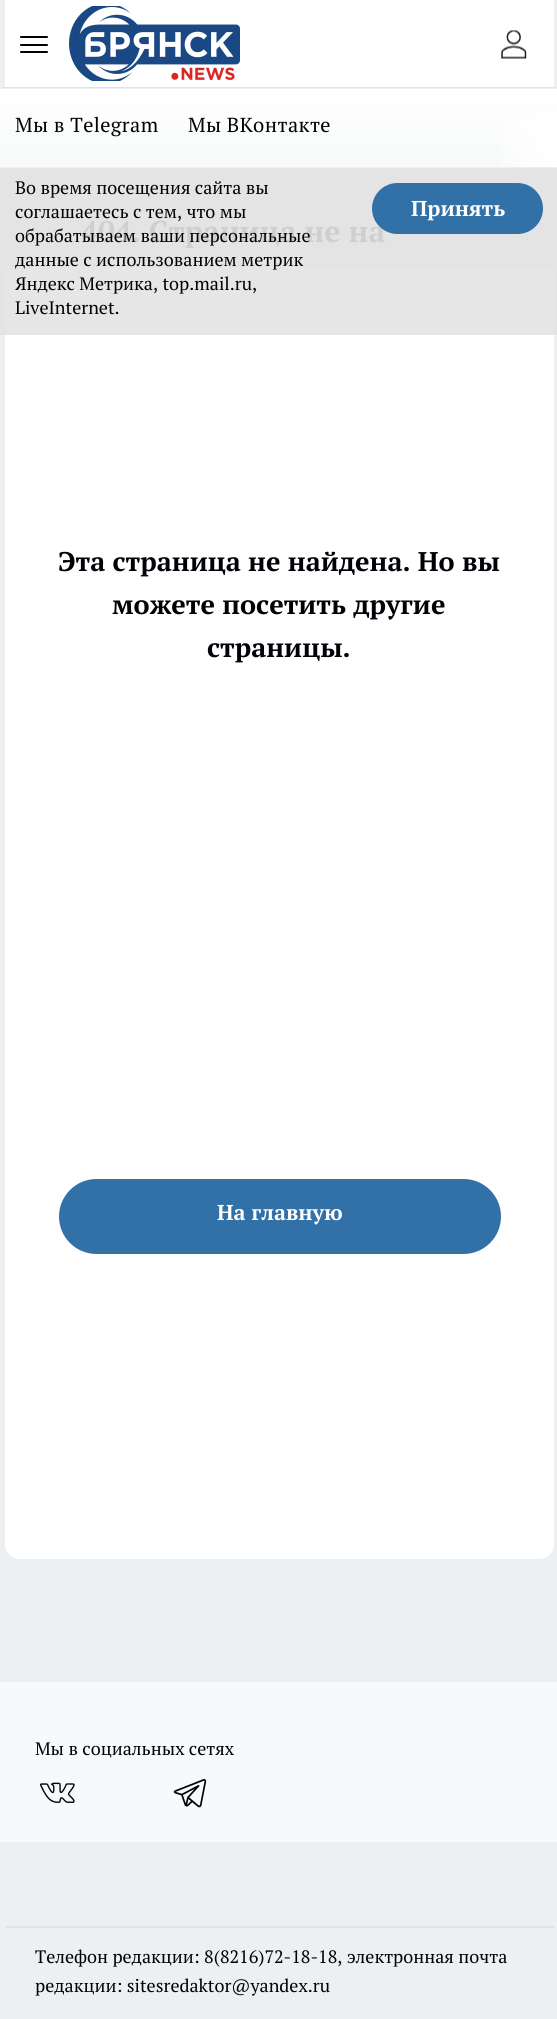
import math
import cairo

surface = cairo.ImageSurface(cairo.Format.RGB24, 557, 2019)
ctx = cairo.Context(surface)
options = cairo.FontOptions()
options.set_hint_metrics(cairo.HintMetrics.OFF)
options.set_hint_style(cairo.HintStyle.NONE)
ctx.set_font_options(options)
ctx.set_miter_limit(4)


def ink(r, g, b):
    ctx.set_source_rgb(r / 255, g / 255, b / 255)


def write(x, y, s, family, size, color, bold=False, italic=False):
    ctx.select_font_face(family, cairo.FontSlant.ITALIC if italic else cairo.FontSlant.NORMAL, cairo.FontWeight.BOLD if bold else cairo.FontWeight.NORMAL)
    ctx.set_font_size(size)
    ink(*color)
    ctx.move_to(x, y)
    ctx.show_text(s)


def write_spaced(x, y, s, letter, word):
    ctx.move_to(x, y)
    for ch in s:
        ctx.show_text(ch)
        ctx.rel_move_to(letter + word * (ch == ' '), 0)


def block(x, y, w, h, *color):
    ink(*color)
    ctx.rectangle(x, y, w, h)
    ctx.fill()


def round_path(x, y, w, h, r):
    ctx.new_sub_path()
    for i, (u, v) in enumerate([(x + w - r, y + h - r), (x + r, y + h - r), (x + r, y + r), (x + w - r, y + r)]):
        ctx.arc(u, v, r, i * math.pi / 2, (i + 1) * math.pi / 2)
    ctx.close_path()


def paste(path, x, y, w, h):
    ctx.save()
    ctx.set_source_surface(cairo.ImageSurface.create_from_png(path), x, y)
    ctx.rectangle(x, y, w, h)
    ctx.fill()
    ctx.restore()


s1 = dict(family="PT Serif", size=18, color=(0, 1, 6))
s2 = dict(family="PT Serif", size=30, color=(207, 207, 207), bold=True)
s3 = dict(family="PT Serif", size=21.5, color=(255, 255, 255), bold=True)
s4 = dict(family="PT Serif", size=27, color=(0, 1, 6), bold=True)

ink(236, 240, 242)
ctx.paint()
block(0, 168, 557, 167, 228, 228, 228)
ink(218, 228, 233)
ctx.new_path()
ctx.move_to(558, 88)
ctx.line_to(0, 88)
ctx.line_to(4, 87)
ctx.line_to(554, 87)
ctx.close_path()
ctx.fill()
ink(236, 240, 242)
ctx.new_path()
ctx.move_to(0, 88)
ctx.line_to(0, 0)
ctx.line_to(4, 0)
ctx.line_to(4, 87)
ctx.close_path()
ctx.fill()
block(5, 0, 549, 87, 255, 255, 255)
ink(0, 1, 6)
round_path(20, 36, 28, 2, 1)
ctx.fill()
round_path(20, 51, 28, 2, 1)
ctx.fill()
round_path(20, 44, 28, 2, 1)
ctx.fill()
paste("pic1.png", 69, 6, 171, 75)
paste("pic2.png", 501, 30, 26, 29)
gradient = cairo.LinearGradient(279, 88, 279, 167)
gradient.add_color_stop_rgba(0, 1, 1, 1, 1)
gradient.add_color_stop_rgba(1, 0.969, 0.976, 0.98, 1)
ctx.set_source(gradient)
ctx.rectangle(0, 89, 557, 78)
ctx.fill()
ctx.select_font_face("PT Serif")
ctx.set_font_size(20.25)
ink(0, 1, 6)
write_spaced(15, 132, "Мы в Telegram", 0.4, 0)
write_spaced(188, 132, "Мы ВКонтакте", 0.4, 0)
gradient = cairo.LinearGradient(473, 128, 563, 128)
gradient.add_color_stop_rgba(0, 1, 1, 1, 0)
gradient.add_color_stop_rgba(1, 1, 1, 1, 1)
ctx.set_source(gradient)
ctx.rectangle(502, 113, 55, 54)
ctx.fill()
write(15, 194, "Во время посещения сайта вы", **s1)
write(15, 218, "соглашаетесь с тем, что мы", **s1)
write(81, 242, "404. Страница не на", **s2)
write(15, 242, "обрабатываем ваши персональные", **s1)
ink(255, 255, 255)
ctx.new_path()
ctx.move_to(5, 267)
ctx.line_to(554, 267)
ctx.line_to(554, 1544)
ctx.curve_to(554, 1552.5, 547.5, 1559, 539, 1559)
ctx.line_to(20, 1559)
ctx.curve_to(11.5, 1559, 5, 1552.5, 5, 1544)
ctx.close_path()
ctx.fill()
block(5, 267, 549, 68, 230, 230, 230)
write(15, 266, "данные с использованием метрик", **s1)
write(15, 290, "Яндекс Метрика, top.mail.ru,", **s1)
write(15, 314, "LiveInternet.", **s1)
ink(50, 113, 168)
round_path(372, 183, 171, 51, 25.5)
ctx.fill()
write(411, 216, "Принять", **s3)
write(58, 571, "Эта страница не найдена. Но вы", **s4)
write(112, 614, "можете посетить другие", **s4)
write(207, 657, "страницы.", **s4)
ink(50, 113, 168)
round_path(59, 1179, 442, 75, 37.5)
ctx.fill()
write(217, 1220, "На главную", **s3)
block(0, 1682, 557, 160, 247, 249, 250)
write(35, 1755, "Мы в социальных сетях", **s1)
paste("pic3.png", 40, 1782, 35, 21)
paste("pic4.png", 173, 1779, 34, 29)
block(5, 1926, 549, 2, 218, 228, 233)
write(35, 1963, "Телефон редакции: 8(8216)72-18-18, электронная почта", **s1)
write(35, 1992, "редакции: sitesredaktor@yandex.ru", **s1)
surface.write_to_png("screenshot.png")
